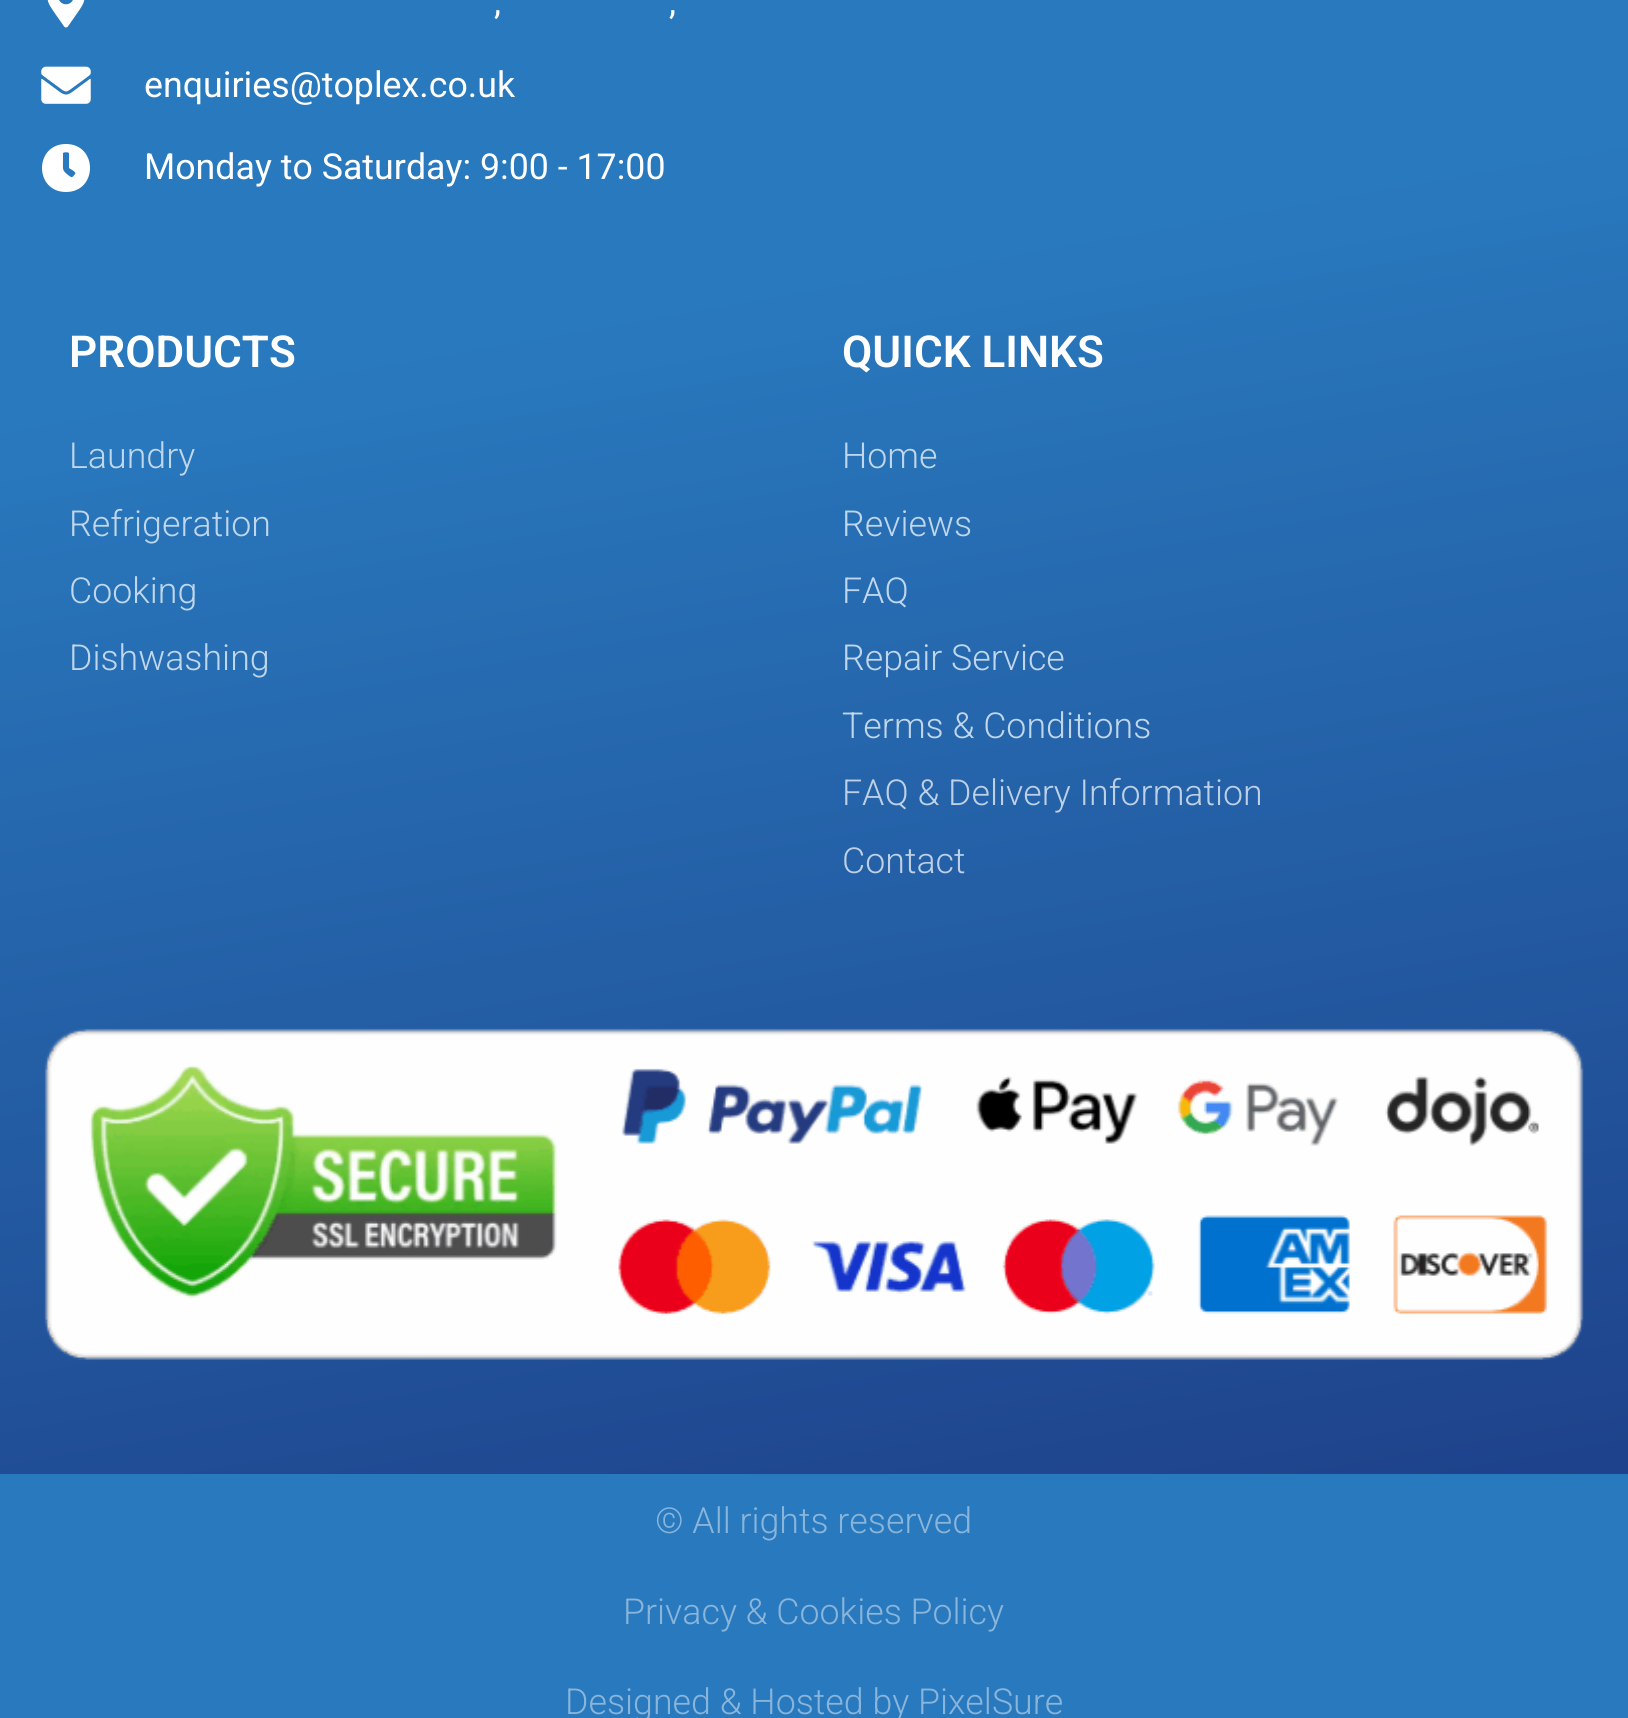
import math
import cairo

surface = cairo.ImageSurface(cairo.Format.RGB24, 1628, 1718)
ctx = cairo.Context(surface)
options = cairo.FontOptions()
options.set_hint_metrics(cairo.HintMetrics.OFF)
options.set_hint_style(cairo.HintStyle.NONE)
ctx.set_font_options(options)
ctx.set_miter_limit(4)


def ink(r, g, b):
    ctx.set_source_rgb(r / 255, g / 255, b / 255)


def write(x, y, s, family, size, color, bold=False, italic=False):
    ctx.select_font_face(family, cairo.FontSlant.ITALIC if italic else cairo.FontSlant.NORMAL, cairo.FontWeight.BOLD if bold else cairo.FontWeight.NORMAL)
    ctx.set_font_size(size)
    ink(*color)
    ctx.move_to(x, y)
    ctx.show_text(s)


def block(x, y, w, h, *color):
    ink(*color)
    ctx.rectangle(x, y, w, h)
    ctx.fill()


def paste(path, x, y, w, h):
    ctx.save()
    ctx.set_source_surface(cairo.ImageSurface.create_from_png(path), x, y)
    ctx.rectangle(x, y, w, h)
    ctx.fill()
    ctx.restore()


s1 = dict(family="Roboto", size=35.75, color=(255, 255, 255))
s2 = dict(family="Roboto SemiBold", size=44, color=(255, 255, 255))
s3 = dict(family="Roboto Light", size=35.75, color=(191, 214, 235))
s4 = dict(family="Roboto Light", size=35.75, color=(189, 208, 229))
s5 = dict(family="Roboto Light", size=35.75, color=(137, 181, 219))

ink(255, 255, 255)
ctx.paint()
gradient = cairo.LinearGradient(623, -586, 1005, 1584)
gradient.add_color_stop_rgba(0.4, 0.161, 0.475, 0.745, 1)
gradient.add_color_stop_rgba(1, 0.118, 0.259, 0.545, 1)
ctx.set_source(gradient)
ctx.rectangle(0, 0, 1628, 1474)
ctx.fill()
paste("pic1.png", 47, 0, 38, 28)
write(494, 14, ",", **s1)
write(669, 14, ",", **s1)
paste("pic2.png", 41, 66, 50, 38)
write(144, 97, "enquiries@toplex.co.uk", **s1)
ctx.new_path()
ctx.move_to(66, 144)
ctx.curve_to(34, 144, 34, 192, 66, 192)
ctx.curve_to(98, 192, 98, 144, 66, 144)
ctx.close_path()
ctx.move_to(75, 174)
ctx.curve_to(72, 178, 72, 178, 68, 175)
ctx.curve_to(62, 170, 63, 170, 63, 161)
ctx.line_to(63, 153)
ctx.curve_to(64, 152, 68, 152, 69, 153)
ctx.line_to(69, 168)
ctx.curve_to(70, 169, 77, 172, 75, 174)
ctx.close_path()
ctx.fill()
write(144, 179, "Monday to Saturday: 9:00 - 17:00", **s1)
write(69, 367, "PRODUCTS", **s2)
write(69, 468, "Laundry", **s3)
write(69, 536, "Refrigeration", **s3)
write(69, 603, "Cooking", **s3)
write(69, 670, "Dishwashing", **s3)
write(842, 367, "QUICK LINKS", **s2)
write(842, 468, "Home", **s3)
write(842, 536, "Reviews", **s3)
write(842, 603, "FAQ", **s3)
write(842, 670, "Repair Service", **s3)
write(842, 738, "Terms & Conditions", **s3)
write(842, 805, "FAQ & Delivery Information", **s4)
write(842, 873, "Contact", **s4)
paste("pic3.png", 44, 1028, 1540, 332)
block(0, 1474, 1628, 244, 41, 121, 190)
write(655, 1533, "© All rights reserved", **s5)
write(623, 1624, "Privacy & Cookies Policy", **s5)
write(565, 1714, "Designed & Hosted by PixelSure", **s5)
surface.write_to_png("screenshot.png")
